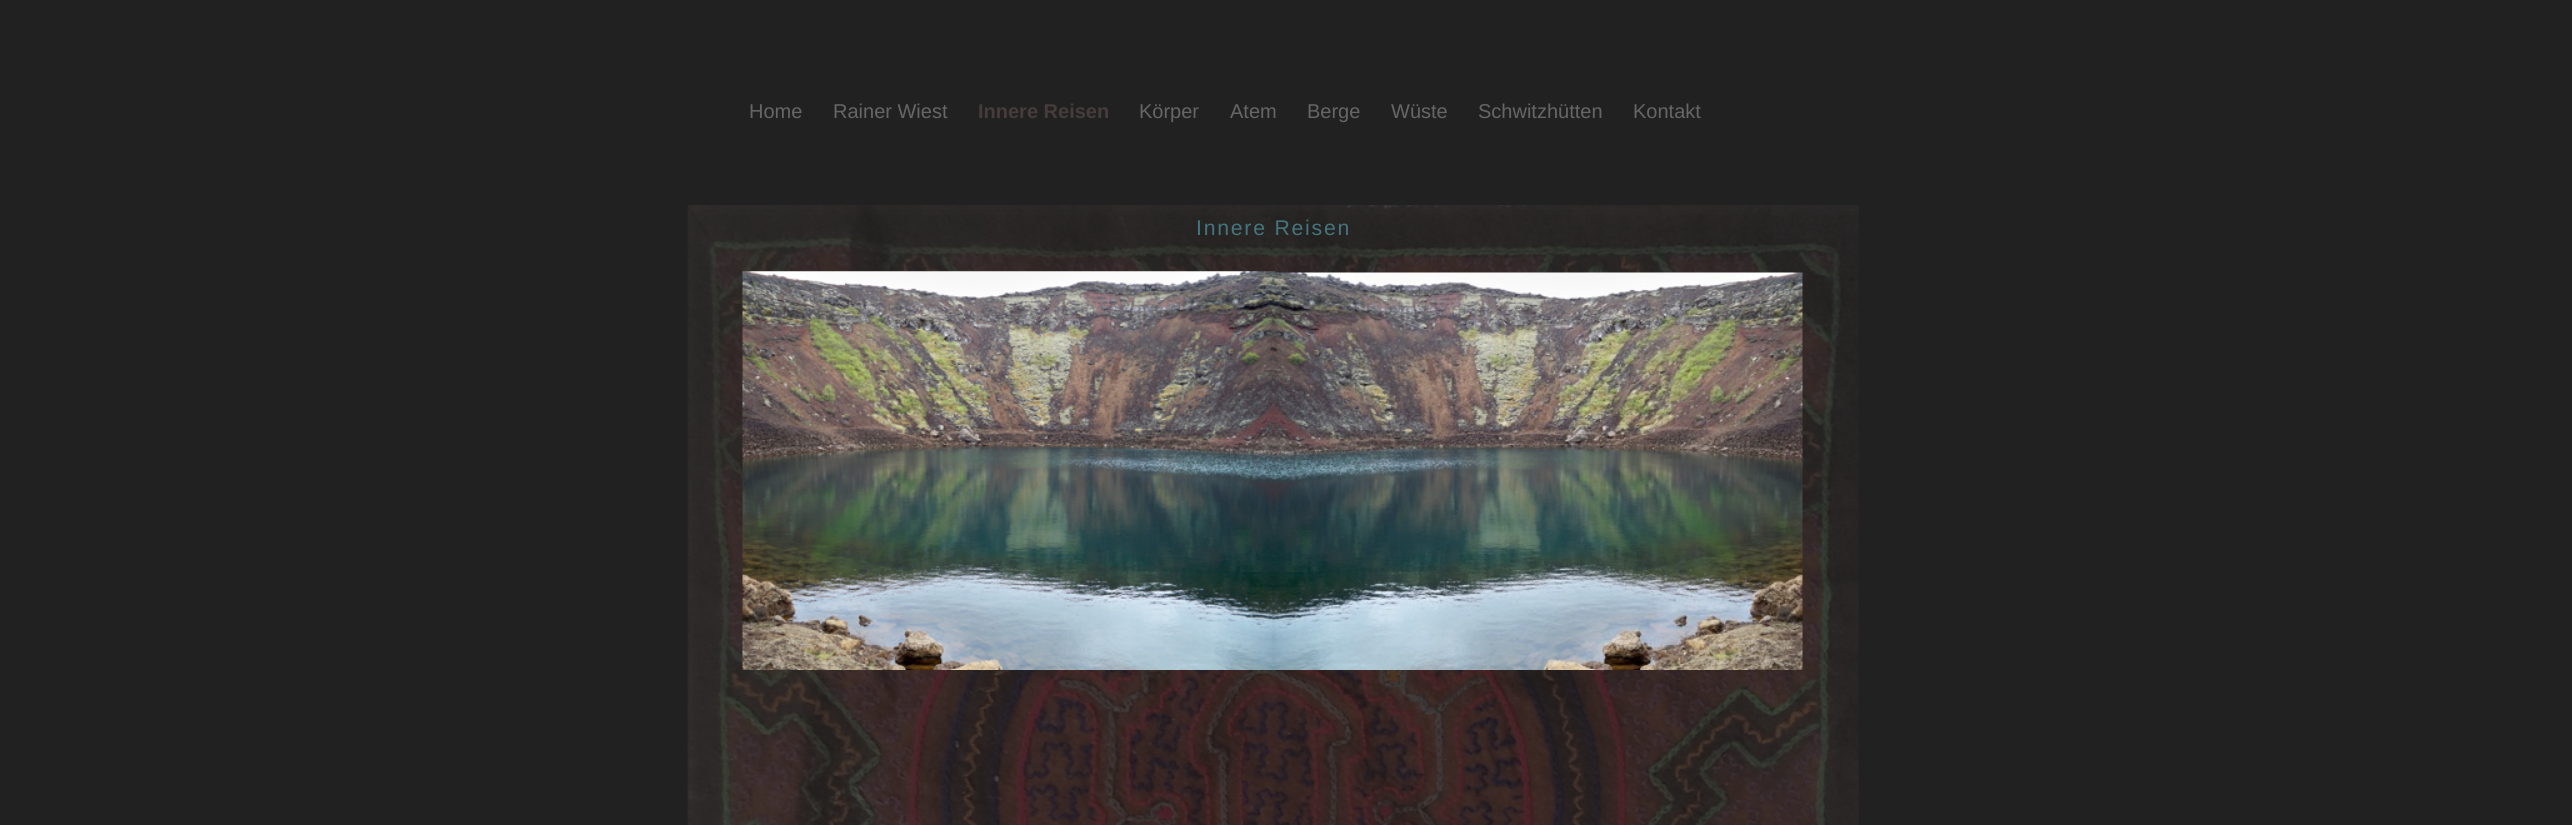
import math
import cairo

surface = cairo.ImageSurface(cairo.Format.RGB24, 2572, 825)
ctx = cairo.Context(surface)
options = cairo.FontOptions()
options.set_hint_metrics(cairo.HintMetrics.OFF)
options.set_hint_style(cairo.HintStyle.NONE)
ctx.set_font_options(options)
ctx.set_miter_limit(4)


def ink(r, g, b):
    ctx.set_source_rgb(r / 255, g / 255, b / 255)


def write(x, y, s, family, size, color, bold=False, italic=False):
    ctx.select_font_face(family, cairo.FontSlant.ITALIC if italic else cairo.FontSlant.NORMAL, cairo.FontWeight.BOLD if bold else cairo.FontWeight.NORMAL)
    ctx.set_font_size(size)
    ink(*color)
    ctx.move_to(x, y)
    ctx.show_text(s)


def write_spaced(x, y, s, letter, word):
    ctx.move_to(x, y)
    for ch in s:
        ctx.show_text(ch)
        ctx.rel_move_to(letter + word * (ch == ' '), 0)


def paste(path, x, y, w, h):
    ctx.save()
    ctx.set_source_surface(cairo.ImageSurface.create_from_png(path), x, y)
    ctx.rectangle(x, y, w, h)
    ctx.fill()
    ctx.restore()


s1 = dict(family="Liberation Sans", size=20, color=(102, 102, 102))
s2 = dict(family="Liberation Sans", size=20, color=(70, 60, 60), bold=True)

ink(33, 33, 33)
ctx.paint()
write(749, 118, "Home", **s1)
write(833, 118, "Rainer Wiest", **s1)
write(978, 118, "Innere Reisen", **s2)
write(1139, 118, "Körper", **s1)
write(1230, 118, "Atem", **s1)
write(1307, 118, "Berge", **s1)
write(1391, 118, "Wüste", **s1)
write(1478, 118, "Schwitzhütten", **s1)
write(1633, 118, "Kontakt", **s1)
paste("pic1.png", 687, 205, 1172, 620)
ctx.set_font_size(21.25)
ink(69, 117, 124)
write_spaced(1196, 235, "Innere Reisen", 1.75, 0)
paste("pic2.png", 742, 271, 533, 399)
paste("pic3.png", 1272, 272, 531, 398)
surface.write_to_png("screenshot.png")
